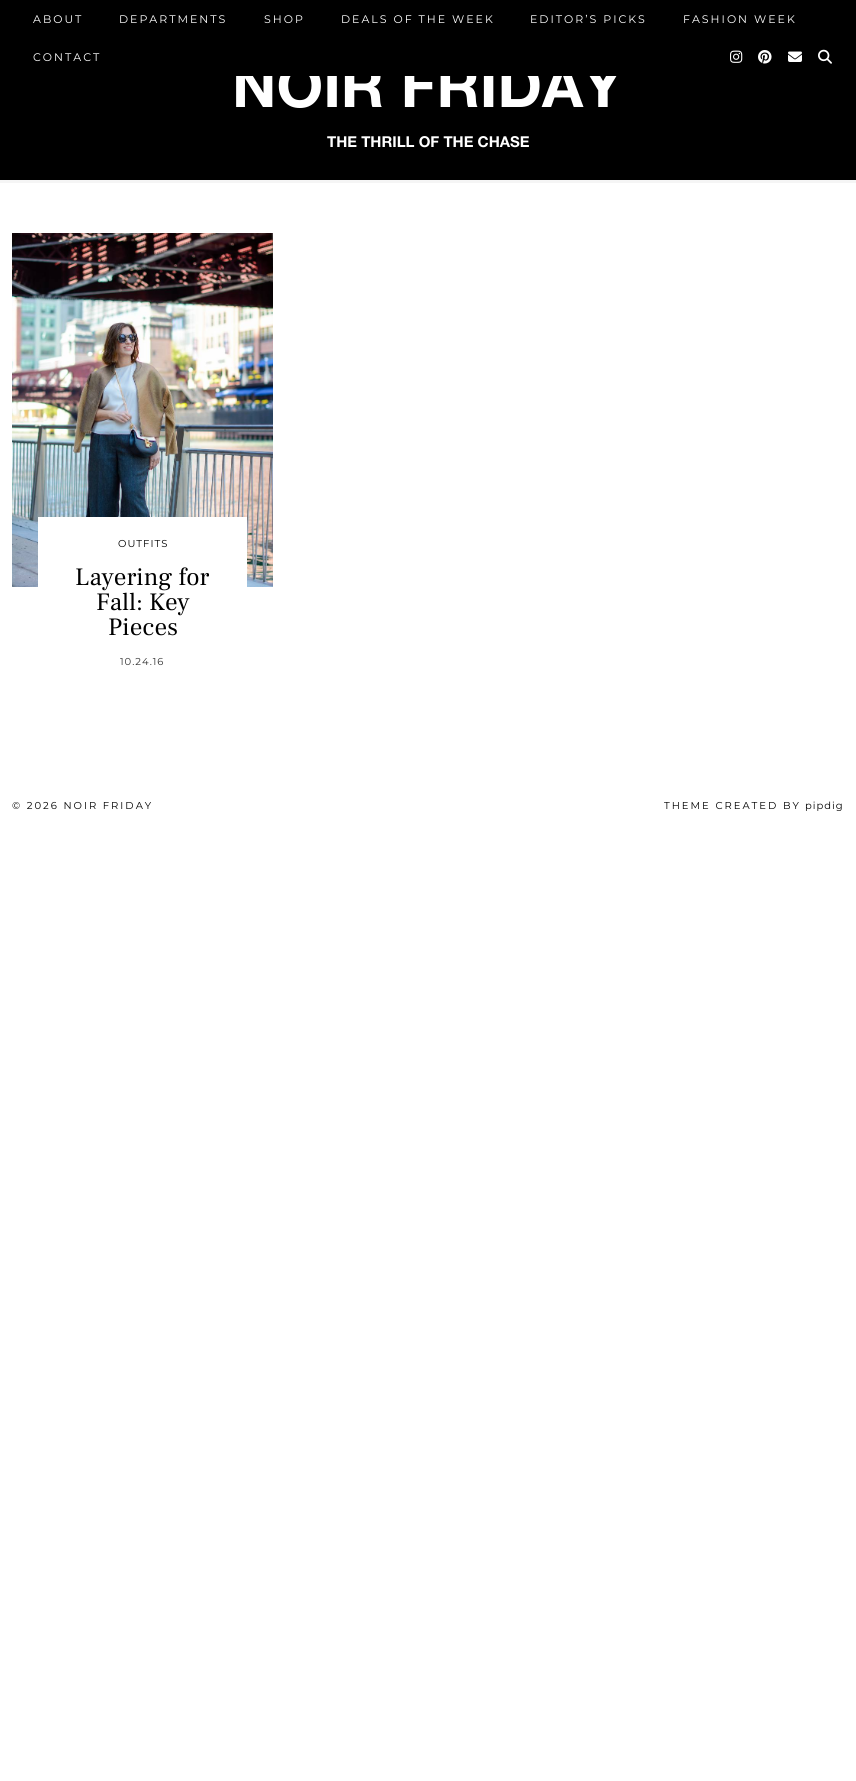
import math
import cairo

surface = cairo.ImageSurface(cairo.Format.RGB24, 856, 1781)
ctx = cairo.Context(surface)
options = cairo.FontOptions()
options.set_hint_metrics(cairo.HintMetrics.OFF)
options.set_hint_style(cairo.HintStyle.NONE)
ctx.set_font_options(options)
ctx.set_miter_limit(4)


def ink(r, g, b):
    ctx.set_source_rgb(r / 255, g / 255, b / 255)


def write(x, y, s, family, size, color, bold=False, italic=False):
    ctx.select_font_face(family, cairo.FontSlant.ITALIC if italic else cairo.FontSlant.NORMAL, cairo.FontWeight.BOLD if bold else cairo.FontWeight.NORMAL)
    ctx.set_font_size(size)
    ink(*color)
    ctx.move_to(x, y)
    ctx.show_text(s)


def write_spaced(x, y, s, letter, word):
    ctx.move_to(x, y)
    for ch in s:
        ctx.show_text(ch)
        ctx.rel_move_to(letter + word * (ch == ' '), 0)


def block(x, y, w, h, *color):
    ink(*color)
    ctx.rectangle(x, y, w, h)
    ctx.fill()


def paste(path, x, y, w, h):
    ctx.save()
    ctx.set_source_surface(cairo.ImageSurface.create_from_png(path), x, y)
    ctx.rectangle(x, y, w, h)
    ctx.fill()
    ctx.restore()


s1 = dict(family="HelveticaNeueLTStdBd", size=60, color=(255, 255, 255), bold=True)
s2 = dict(family="HelveticaNeueLTStdBd", size=15, color=(255, 255, 255), bold=True)
s3 = dict(family="Frank Ruhl Libre", size=25, color=(0, 0, 0))

ink(255, 255, 255)
ctx.paint()
block(0, 76, 856, 104, 0, 0, 0)
write(232, 107, "NOIR FRIDAY", **s1)
block(0, 0, 856, 76, 0, 0, 0)
ctx.select_font_face("Montserrat Thin")
ctx.set_font_size(11)
ink(255, 255, 255)
write_spaced(33, 23, "ABOUT", 2, 0)
write_spaced(119, 23, "DEPARTMENTS", 2, 0)
write_spaced(264, 23, "SHOP", 2, 0)
write_spaced(341, 23, "DEALS OF THE WEEK", 2, 0)
write_spaced(530, 23, "EDITOR’S PICKS", 2, 0)
write_spaced(683, 23, "FASHION WEEK", 2, 0)
write_spaced(33, 61, "CONTACT", 2, 0)
paste("pic1.png", 730, 50, 13, 13)
paste("pic2.png", 758, 50, 14, 14)
paste("pic3.png", 788, 51, 14, 11)
paste("pic4.png", 818, 49, 14, 15)
block(0, 180, 856, 3, 245, 245, 245)
write(327, 147, "THE THRILL OF THE CHASE", **s2)
paste("pic5.png", 12, 233, 261, 354)
block(38, 517, 209, 70, 255, 255, 255)
ctx.select_font_face("Montserrat Thin")
ctx.set_font_size(10)
ink(0, 0, 0)
write_spaced(118, 547, "OUTFITS", 1, 0)
write(75, 585, "Layering for", **s3)
write(96, 610, "Fall: Key", **s3)
write(108, 635, "Pieces", **s3)
ctx.select_font_face("Montserrat Thin")
ctx.set_font_size(10)
ink(51, 51, 51)
write_spaced(120, 665, "10.24.16", 1, 0)
ink(0, 0, 0)
write_spaced(12, 809, "© 2026 NOIR FRIDAY", 2, 0)
write_spaced(664, 809, "THEME CREATED BY", 2, 0)
write_spaced(805, 809, "pipdig", 1, 0)
surface.write_to_png("screenshot.png")
